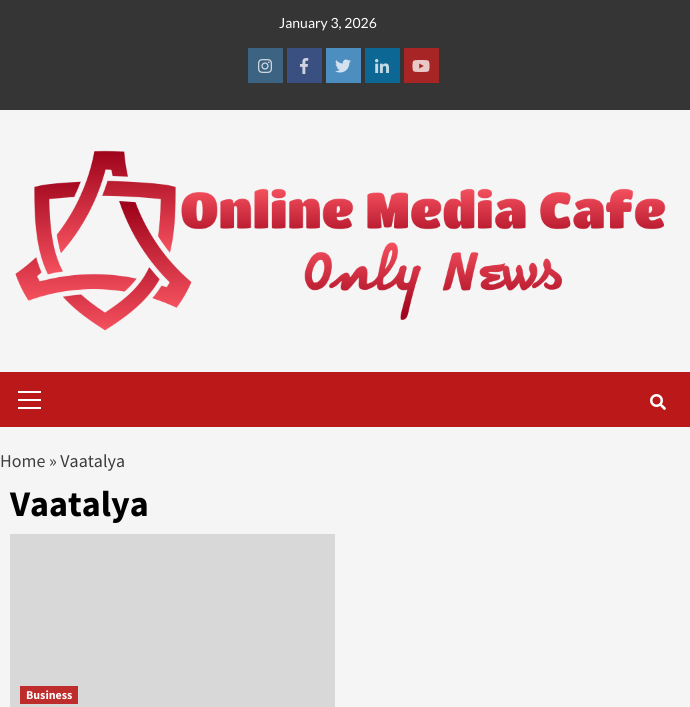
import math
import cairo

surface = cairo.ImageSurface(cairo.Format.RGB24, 690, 707)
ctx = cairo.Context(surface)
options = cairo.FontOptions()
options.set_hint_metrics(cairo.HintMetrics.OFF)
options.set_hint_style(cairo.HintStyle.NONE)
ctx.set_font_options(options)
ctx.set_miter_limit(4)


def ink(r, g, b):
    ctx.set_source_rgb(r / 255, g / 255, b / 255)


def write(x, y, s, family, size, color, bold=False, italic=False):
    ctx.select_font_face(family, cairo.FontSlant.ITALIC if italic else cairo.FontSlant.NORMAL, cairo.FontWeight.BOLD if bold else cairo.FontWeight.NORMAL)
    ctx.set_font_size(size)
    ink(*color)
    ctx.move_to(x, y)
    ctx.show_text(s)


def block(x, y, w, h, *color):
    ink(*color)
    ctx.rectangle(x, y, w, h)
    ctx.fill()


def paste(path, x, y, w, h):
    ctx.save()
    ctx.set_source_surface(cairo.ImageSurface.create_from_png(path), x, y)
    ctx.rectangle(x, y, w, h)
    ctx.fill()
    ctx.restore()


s1 = dict(family="Lato", size=14, color=(255, 255, 255))
s2 = dict(family="Source Sans Pro", size=18, color=(64, 64, 64))
s3 = dict(family="Source Sans Pro", size=18, color=(58, 58, 58))
s4 = dict(family="Source Sans Pro", size=36, color=(0, 0, 0), bold=True)
s5 = dict(family="Source Sans Pro", size=12, color=(255, 255, 255), bold=True)

ink(245, 245, 245)
ctx.paint()
block(0, 0, 690, 110, 53, 53, 53)
write(279, 28, "January 3, 2026", **s1)
block(248, 48, 35, 35, 61, 99, 130)
paste("pic1.png", 258, 59, 14, 14)
block(287, 48, 35, 35, 58, 80, 128)
paste("pic2.png", 300, 58, 9, 16)
block(326, 48, 35, 35, 77, 142, 192)
paste("pic3.png", 335, 59, 16, 14)
block(365, 48, 35, 35, 13, 103, 149)
paste("pic4.png", 375, 59, 14, 14)
block(404, 48, 35, 35, 167, 37, 37)
paste("pic5.png", 412, 60, 18, 12)
paste("pic6.png", 15, 150, 651, 181)
block(0, 372, 690, 55, 187, 25, 25)
block(18, 399, 23, 2, 255, 255, 255)
block(18, 391, 23, 2, 255, 255, 255)
block(18, 407, 23, 2, 255, 255, 255)
paste("pic7.png", 650, 394, 16, 16)
write(0, 467, "Home", **s2)
write(49, 467, "» Vaatalya", **s3)
write(10, 516, "Vaatalya", **s4)
block(10, 534, 325, 173, 216, 216, 216)
block(20, 686, 58, 18, 190, 44, 44)
write(26, 699, "Business", **s5)
surface.write_to_png("screenshot.png")
